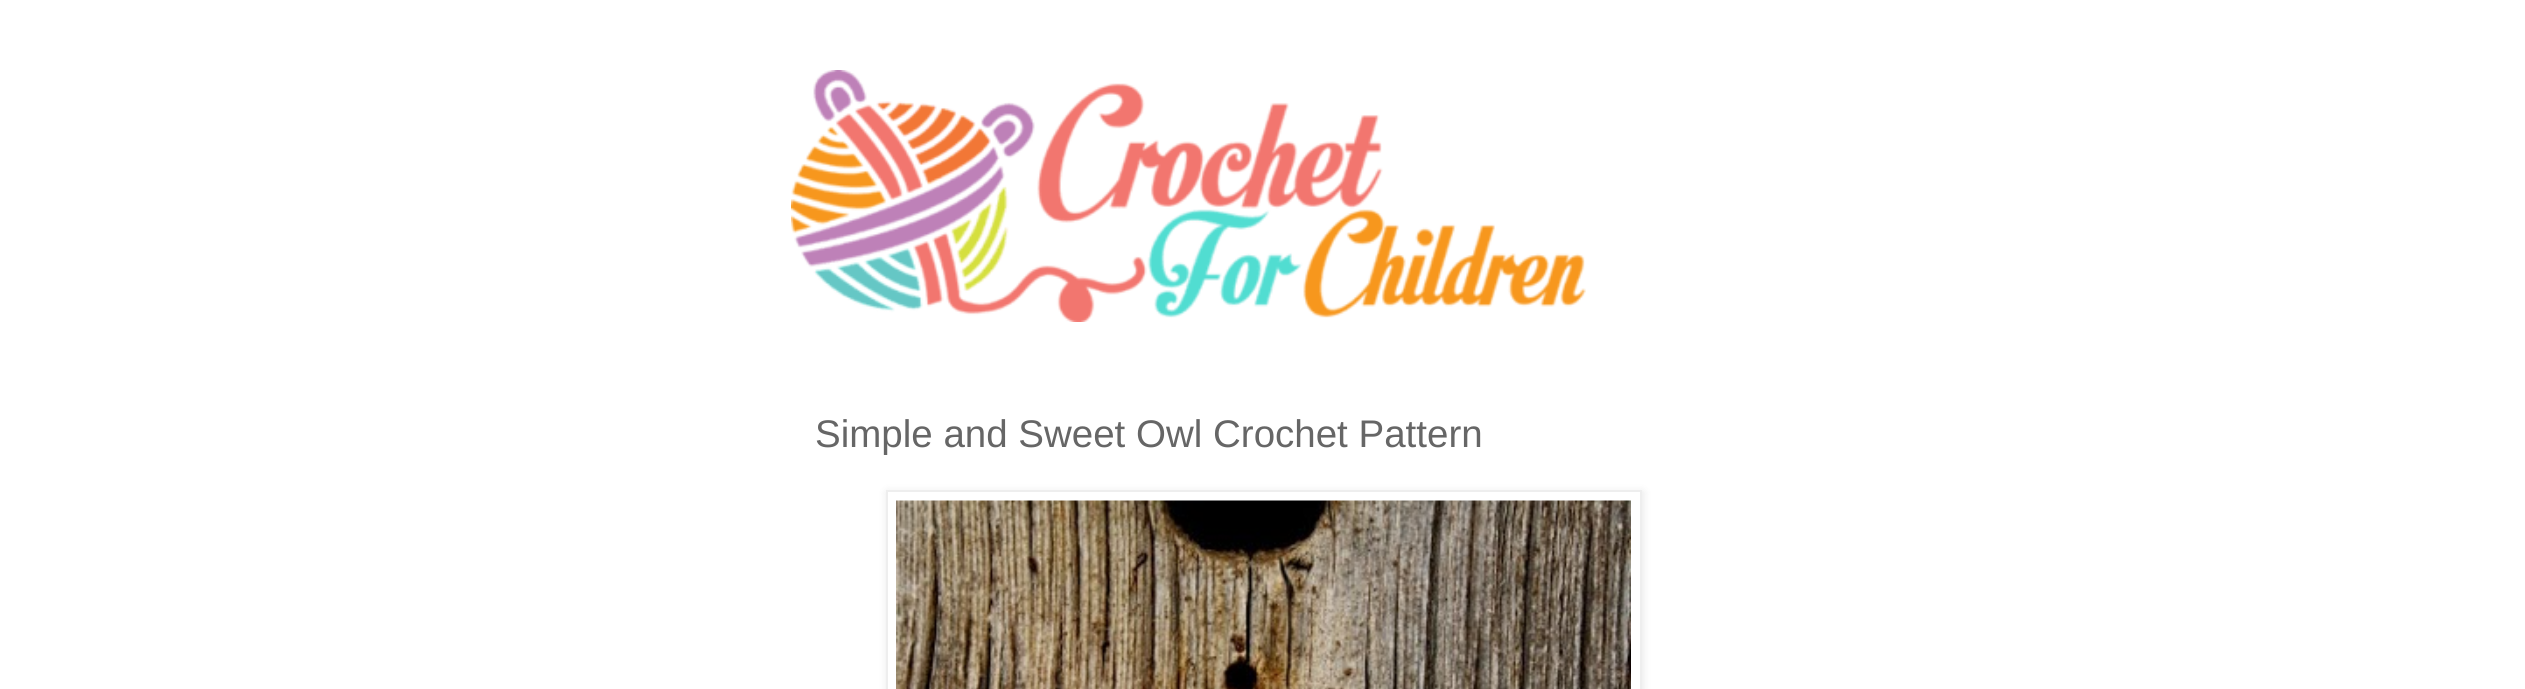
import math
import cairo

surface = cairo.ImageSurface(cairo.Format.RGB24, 2525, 689)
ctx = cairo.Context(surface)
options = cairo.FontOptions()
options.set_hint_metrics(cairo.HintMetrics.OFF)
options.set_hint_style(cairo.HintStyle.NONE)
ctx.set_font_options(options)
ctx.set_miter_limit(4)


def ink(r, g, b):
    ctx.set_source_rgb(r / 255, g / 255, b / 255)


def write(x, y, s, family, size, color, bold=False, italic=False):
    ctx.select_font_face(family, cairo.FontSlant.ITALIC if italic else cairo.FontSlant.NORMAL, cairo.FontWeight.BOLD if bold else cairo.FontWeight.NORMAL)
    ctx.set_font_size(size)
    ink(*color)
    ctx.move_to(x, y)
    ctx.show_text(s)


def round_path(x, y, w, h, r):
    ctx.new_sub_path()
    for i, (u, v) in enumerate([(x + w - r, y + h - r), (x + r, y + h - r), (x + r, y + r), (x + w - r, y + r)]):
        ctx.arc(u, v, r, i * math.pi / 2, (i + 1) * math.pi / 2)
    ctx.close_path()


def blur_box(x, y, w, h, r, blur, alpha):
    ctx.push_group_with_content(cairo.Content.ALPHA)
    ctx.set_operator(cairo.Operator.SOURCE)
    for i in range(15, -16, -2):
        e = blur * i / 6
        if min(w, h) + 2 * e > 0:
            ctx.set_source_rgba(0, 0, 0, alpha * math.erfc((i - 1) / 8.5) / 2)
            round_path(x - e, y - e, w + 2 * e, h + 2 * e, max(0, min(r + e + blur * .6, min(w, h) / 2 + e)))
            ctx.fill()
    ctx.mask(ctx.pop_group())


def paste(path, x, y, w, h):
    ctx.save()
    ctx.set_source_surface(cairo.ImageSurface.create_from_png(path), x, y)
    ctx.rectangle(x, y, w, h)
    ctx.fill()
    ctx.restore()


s1 = dict(family="Liberation Sans", size=38.5, color=(102, 102, 102))

ink(255, 255, 255)
ctx.paint()
paste("pic1.png", 791, 70, 795, 252)
write(815, 447, "Simple and Sweet Owl Crochet Pattern", **s1)
ink(0, 0, 0)
blur_box(887, 492, 756, 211, 0, 4.5, 0.1)
ink(255, 255, 255)
ctx.rectangle(887, 491, 754, 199)
ctx.fill_preserve()
ink(238, 238, 238)
ctx.stroke()
paste("pic2.png", 896, 500, 735, 189)
surface.write_to_png("screenshot.png")
